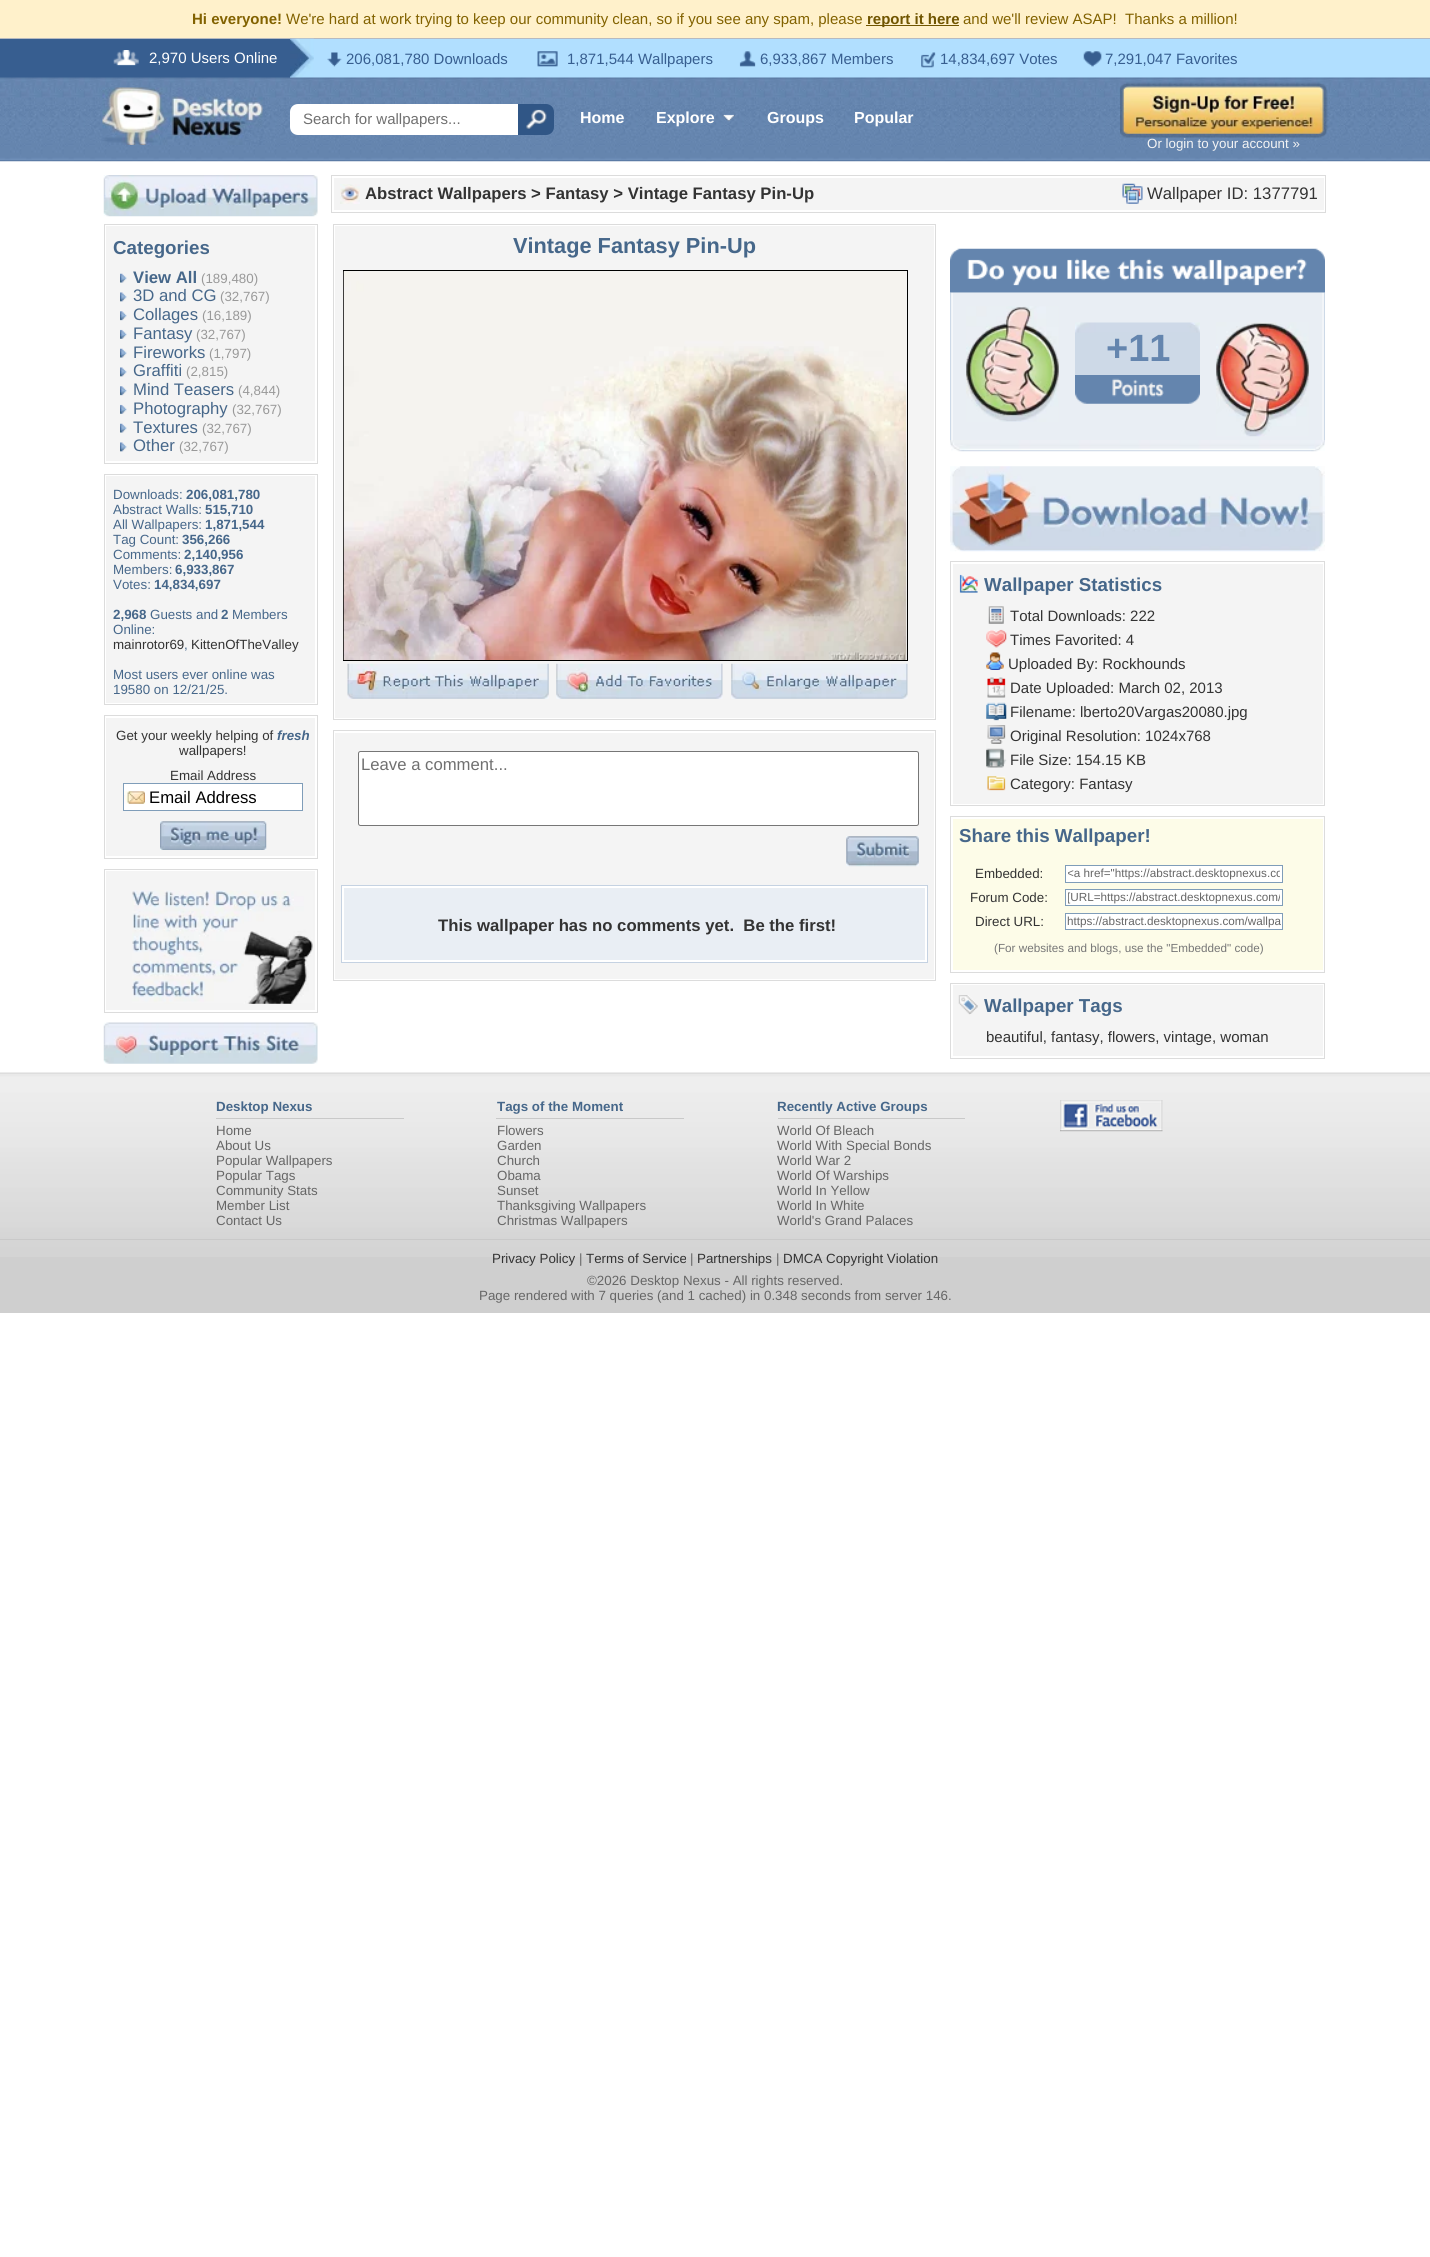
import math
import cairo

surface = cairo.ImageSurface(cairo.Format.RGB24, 1430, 2257)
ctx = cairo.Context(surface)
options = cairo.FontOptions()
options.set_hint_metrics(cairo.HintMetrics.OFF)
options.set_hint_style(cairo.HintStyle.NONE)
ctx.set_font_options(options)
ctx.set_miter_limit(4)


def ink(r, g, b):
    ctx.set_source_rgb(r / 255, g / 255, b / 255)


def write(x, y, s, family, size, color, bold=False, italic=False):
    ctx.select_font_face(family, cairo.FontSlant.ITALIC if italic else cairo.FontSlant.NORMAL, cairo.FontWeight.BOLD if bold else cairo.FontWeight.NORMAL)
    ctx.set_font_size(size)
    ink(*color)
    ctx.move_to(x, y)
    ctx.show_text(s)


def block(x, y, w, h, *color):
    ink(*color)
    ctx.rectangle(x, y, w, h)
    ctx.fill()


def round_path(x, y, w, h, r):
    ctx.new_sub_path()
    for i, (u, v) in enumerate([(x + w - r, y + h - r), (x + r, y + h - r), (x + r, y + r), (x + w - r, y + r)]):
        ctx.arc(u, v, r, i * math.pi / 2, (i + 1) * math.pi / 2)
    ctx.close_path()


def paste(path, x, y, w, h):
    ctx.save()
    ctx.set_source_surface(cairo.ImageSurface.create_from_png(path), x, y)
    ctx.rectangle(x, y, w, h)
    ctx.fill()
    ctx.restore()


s1 = dict(family="Liberation Sans", size=15, color=(130, 98, 0), bold=True)
s2 = dict(family="Liberation Sans", size=15, color=(130, 98, 0))
s3 = dict(family="Liberation Sans", size=15, color=(112, 85, 0), bold=True)
s4 = dict(family="Liberation Sans", size=15, color=(255, 255, 255))
s5 = dict(family="Liberation Sans", size=15, color=(55, 94, 144))
s6 = dict(family="Liberation Sans", size=15, color=(112, 112, 112))
s7 = dict(family="Liberation Sans", size=16, color=(255, 255, 255), bold=True)
s8 = dict(family="Liberation Sans", size=13.35, color=(244, 244, 244))
s9 = dict(family="Liberation Sans", size=18.75, color=(70, 103, 138), bold=True)
s10 = dict(family="Liberation Sans", size=16.7, color=(70, 103, 138), bold=True)
s11 = dict(family="Liberation Sans", size=13.35, color=(153, 153, 153))
s12 = dict(family="Liberation Sans", size=16.7, color=(70, 103, 138))
s13 = dict(family="Liberation Sans", size=13.35, color=(70, 103, 138))
s14 = dict(family="Liberation Sans", size=13.35, color=(70, 103, 138), bold=True)
s15 = dict(family="Liberation Sans", size=13.35, color=(51, 51, 51))
s16 = dict(family="Liberation Sans", size=13.35, color=(70, 103, 138), bold=True, italic=True)
s17 = dict(family="Liberation Sans", size=16.7, color=(0, 0, 0))
s18 = dict(family="Liberation Sans", size=16.7, color=(51, 51, 51), bold=True)
s19 = dict(family="Liberation Sans", size=16.7, color=(51, 51, 51))
s20 = dict(family="Liberation Sans", size=21.75, color=(70, 103, 138), bold=True)
s21 = dict(family="Liberation Sans", size=16.7, color=(112, 112, 112))
s22 = dict(family="Liberation Sans", size=38, color=(100, 133, 174), bold=True)
s23 = dict(family="Liberation Sans", size=15, color=(51, 51, 51))
s24 = dict(family="Liberation Sans", size=11.7, color=(102, 102, 102))
s25 = dict(family="Liberation Sans", size=11.7, color=(119, 119, 119))
s26 = dict(family="Liberation Sans", size=13.35, color=(102, 102, 102))

ink(255, 255, 255)
ctx.paint()
block(0, 0, 1430, 38, 255, 241, 203)
write(192, 24, "Hi everyone!", **s1)
write(286, 24, "We're hard at work trying to keep our community clean, so if you see any spam, please", **s2)
block(866, 25, 93, 1, 112, 85, 0)
write(867, 24, "report it here", **s3)
write(963, 24, "and we'll review ASAP!  Thanks a million!", **s2)
block(290, 39, 1140, 39, 177, 223, 255)
block(0, 38, 1430, 1, 182, 186, 192)
block(0, 39, 290, 39, 55, 94, 144)
paste("pic1.png", 113, 50, 26, 16)
write(149, 63, "2,970 Users Online", **s4)
paste("pic2.png", 290, 38, 24, 40)
paste("pic3.png", 327, 52, 15, 15)
write(346, 64, "206,081,780 Downloads", **s5)
paste("pic4.png", 537, 51, 21, 16)
write(567, 64, "1,871,544 Wallpapers", **s5)
paste("pic5.png", 739, 51, 17, 16)
write(760, 64, "6,933,867 Members", **s5)
paste("pic6.png", 921, 52, 15, 16)
write(940, 64, "14,834,697 Votes", **s5)
paste("pic7.png", 1083, 51, 19, 16)
write(1105, 64, "7,291,047 Favorites", **s5)
paste("pic8.png", 0, 77, 1430, 85)
paste("pic9.png", 102, 87, 161, 58)
ink(255, 255, 255)
ctx.new_path()
ctx.move_to(298, 104)
ctx.line_to(538, 104)
ctx.line_to(538, 135)
ctx.line_to(298, 135)
ctx.curve_to(293.5, 135, 290, 131.5, 290, 127)
ctx.line_to(290, 112)
ctx.curve_to(290, 107.5, 293.5, 104, 298, 104)
ctx.close_path()
ctx.fill()
write(303, 124, "Search for wallpapers...", **s6)
ink(48, 86, 134)
ctx.new_path()
ctx.move_to(518, 104)
ctx.line_to(546, 104)
ctx.curve_to(550.5, 104, 554, 107.5, 554, 112)
ctx.line_to(554, 127)
ctx.curve_to(554, 131.5, 550.5, 135, 546, 135)
ctx.line_to(518, 135)
ctx.close_path()
ctx.fill()
paste("pic10.png", 526, 109, 21, 20)
write(580, 123, "Home", **s7)
write(656, 123, "Explore", **s7)
paste("pic11.png", 722, 114, 13, 8)
write(767, 123, "Groups", **s7)
write(854, 123, "Popular", **s7)
paste("pic12.png", 1120, 82, 208, 56)
write(1147, 148, "Or login to your account »", **s8)
paste("pic13.png", 103, 175, 215, 42)
ctx.rectangle(104.5, 224.5, 213, 239)
ink(220, 220, 220)
ctx.set_line_width(1)
ctx.stroke()
block(106, 226, 209, 235, 244, 244, 244)
write(113, 254, "Categories", **s9)
paste("pic14.png", 120, 273, 7, 10)
write(133, 283, "View All", **s10)
write(201, 283, "(189,480)", **s11)
paste("pic15.png", 120, 292, 7, 10)
write(133, 301, "3D and CG", **s12)
write(220, 301, "(32,767)", **s11)
paste("pic16.png", 120, 311, 7, 10)
write(133, 320, "Collages", **s12)
write(202, 320, "(16,189)", **s11)
paste("pic17.png", 120, 329, 7, 10)
write(133, 339, "Fantasy", **s12)
write(196, 339, "(32,767)", **s11)
paste("pic14.png", 120, 348, 7, 10)
write(133, 358, "Fireworks", **s12)
write(209, 358, "(1,797)", **s11)
paste("pic18.png", 120, 367, 7, 10)
write(133, 376, "Graffiti", **s12)
write(186, 376, "(2,815)", **s11)
paste("pic16.png", 120, 386, 7, 10)
write(133, 395, "Mind Teasers", **s12)
write(238, 395, "(4,844)", **s11)
paste("pic17.png", 120, 404, 7, 10)
write(133, 414, "Photography", **s12)
write(232, 414, "(32,767)", **s11)
paste("pic14.png", 120, 423, 7, 10)
write(133, 433, "Textures", **s12)
write(202, 433, "(32,767)", **s11)
paste("pic18.png", 120, 442, 7, 10)
write(133, 451, "Other", **s12)
write(179, 451, "(32,767)", **s11)
ctx.rectangle(104.5, 474.5, 213, 230)
ink(220, 220, 220)
ctx.stroke()
block(106, 476, 209, 227, 244, 244, 244)
write(113, 499, "Downloads:", **s13)
write(186, 499, "206,081,780", **s14)
write(113, 514, "Abstract Walls:", **s13)
write(205, 514, "515,710", **s14)
write(113, 529, "All Wallpapers:", **s13)
write(205, 529, "1,871,544", **s14)
write(113, 544, "Tag Count:", **s13)
write(182, 544, "356,266", **s14)
write(113, 559, "Comments:", **s13)
write(184, 559, "2,140,956", **s14)
write(113, 574, "Members:", **s13)
write(175, 574, "6,933,867", **s14)
write(113, 589, "Votes:", **s13)
write(154, 589, "14,834,697", **s14)
write(113, 619, "2,968", **s14)
write(150, 619, "Guests and", **s13)
write(221, 619, "2", **s14)
write(232, 619, "Members", **s13)
write(113, 634, "Online:", **s13)
write(113, 649, "mainrotor69", **s15)
write(184, 649, ",", **s13)
write(191, 649, "KittenOfTheValley", **s15)
write(113, 679, "Most users ever online was", **s13)
write(113, 694, "19580 on 12/21/25.", **s13)
ctx.rectangle(104.5, 715.5, 213, 143)
ink(220, 220, 220)
ctx.stroke()
block(106, 718, 209, 138, 244, 244, 244)
write(116, 740, "Get your weekly helping of", **s15)
write(277, 740, "fresh", **s16)
write(179, 755, "wallpapers!", **s15)
write(170, 780, "Email Address", **s15)
block(124, 784, 178, 26, 255, 255, 255)
paste("pic19.png", 124, 791, 21, 13)
ctx.rectangle(123.5, 783.5, 179, 27)
ink(127, 157, 185)
ctx.stroke()
write(149, 803, "Email Address", **s17)
paste("pic20.png", 160, 821, 107, 29)
ctx.rectangle(104.5, 869.5, 213, 143)
ink(220, 220, 220)
ctx.stroke()
block(106, 871, 209, 139, 244, 244, 244)
paste("pic21.png", 132, 890, 181, 114)
paste("pic22.png", 103, 1022, 215, 42)
ctx.rectangle(331.5, 175.5, 994, 37)
ink(220, 220, 220)
ctx.stroke()
block(334, 178, 990, 32, 244, 244, 244)
paste("pic23.png", 340, 184, 20, 20)
write(365, 199, "Abstract Wallpapers > Fantasy > Vintage Fantasy Pin-Up", **s18)
paste("pic24.png", 1122, 183, 21, 21)
write(1147, 199, "Wallpaper ID: 1377791", **s19)
ctx.rectangle(333.5, 224.5, 602, 495)
ink(220, 220, 220)
ctx.stroke()
block(335, 226, 599, 492, 244, 244, 244)
write(513, 253, "Vintage Fantasy Pin-Up", **s20)
ctx.rectangle(343.5, 270.5, 564, 390)
ink(0, 0, 0)
ctx.stroke()
paste("pic25.png", 343, 271, 564, 389)
paste("pic26.png", 347, 663, 202, 36)
paste("pic27.png", 556, 663, 167, 36)
paste("pic28.png", 731, 663, 177, 36)
ctx.rectangle(333.5, 730.5, 602, 250)
ink(220, 220, 220)
ctx.stroke()
block(335, 733, 599, 246, 244, 244, 244)
ink(255, 255, 255)
round_path(358.5, 751.5, 560, 74, 2)
ctx.fill_preserve()
ink(118, 118, 118)
ctx.stroke()
write(361, 770, "Leave a comment...", **s21)
paste("pic29.png", 846, 836, 73, 31)
ink(255, 255, 255)
ctx.rectangle(341.5, 885.5, 586, 77)
ctx.fill_preserve()
ink(197, 210, 226)
ctx.stroke()
block(344, 888, 581, 72, 233, 238, 244)
write(438, 931, "This wallpaper has no comments yet.  Be the first!", **s18)
paste("pic31.png", 950, 292, 375, 148)
paste("pic30.png", 950, 248, 375, 45)
paste("pic32.png", 966, 306, 93, 116)
block(1075, 332, 125, 43, 205, 217, 231)
paste("pic33.png", 1075, 322, 125, 11)
write(1106, 361, "+11", **s22)
paste("pic34.png", 1075, 375, 125, 29)
paste("pic35.png", 1216, 322, 93, 115)
paste("pic36.png", 950, 440, 375, 12)
paste("pic37.png", 950, 466, 375, 86)
ctx.rectangle(950.5, 561.5, 374, 244)
ink(220, 220, 220)
ctx.stroke()
block(953, 564, 370, 240, 244, 244, 244)
paste("pic38.png", 959, 574, 19, 19)
write(984, 591, "Wallpaper Statistics", **s9)
paste("pic39.png", 988, 606, 16, 18)
write(1010, 621, "Total Downloads: 222", **s23)
paste("pic40.png", 986, 629, 21, 19)
write(1010, 645, "Times Favorited: 4", **s23)
paste("pic41.png", 986, 652, 18, 18)
write(1008, 669, "Uploaded By: Rockhounds", **s23)
paste("pic42.png", 987, 677, 19, 21)
write(1010, 693, "Date Uploaded: March 02, 2013", **s23)
paste("pic43.png", 986, 702, 21, 19)
write(1010, 717, "Filename: lberto20Vargas20080.jpg", **s23)
paste("pic44.png", 987, 725, 19, 19)
write(1010, 741, "Original Resolution: 1024x768", **s23)
paste("pic45.png", 986, 748, 21, 20)
write(1010, 765, "File Size: 154.15 KB", **s23)
paste("pic46.png", 987, 776, 19, 15)
write(1010, 789, "Category: Fantasy", **s23)
ctx.rectangle(950.5, 816.5, 374, 156)
ink(220, 220, 220)
ctx.stroke()
block(953, 819, 370, 151, 253, 252, 232)
write(959, 842, "Share this Wallpaper!", **s9)
write(975, 878, "Embedded:", **s15)
ink(255, 255, 255)
ctx.rectangle(1065.5, 865.5, 217, 17)
ctx.fill_preserve()
ink(127, 157, 185)
ctx.stroke()
ctx.save()
ctx.rectangle(1068, 868, 212, 12)
ctx.clip()
write(1067, 877, "<a href=\"https://abstract.desktopnexus.co", **s24)
ctx.restore()
write(970, 902, "Forum Code:", **s15)
ink(255, 255, 255)
ctx.rectangle(1065.5, 889.5, 217, 16)
ctx.fill_preserve()
ink(127, 157, 185)
ctx.stroke()
ctx.save()
ctx.rectangle(1068, 891, 212, 13)
ctx.clip()
write(1067, 901, "[URL=https://abstract.desktopnexus.com/", **s24)
ctx.restore()
write(975, 926, "Direct URL:", **s15)
ink(255, 255, 255)
ctx.rectangle(1065.5, 913.5, 217, 16)
ctx.fill_preserve()
ink(127, 157, 185)
ctx.stroke()
write(1067, 925, "https://abstract.desktopnexus.com/wallpa", **s24)
write(994, 952, "(For websites and blogs, use the \"Embedded\" code)", **s25)
ctx.rectangle(950.5, 983.5, 374, 75)
ink(220, 220, 220)
ctx.stroke()
block(953, 985, 370, 71, 244, 244, 244)
paste("pic47.png", 958, 995, 20, 20)
write(984, 1012, "Wallpaper Tags", **s9)
write(986, 1042, "beautiful, fantasy, flowers, vintage, woman", **s23)
block(0, 1257, 1430, 56, 207, 207, 207)
paste("pic48.png", 0, 1072, 1430, 185)
write(216, 1111, "Desktop Nexus", **s14)
block(216, 1118, 188, 1, 201, 201, 201)
write(216, 1135, "Home", **s26)
write(216, 1150, "About Us", **s26)
write(216, 1165, "Popular Wallpapers", **s26)
write(216, 1180, "Popular Tags", **s26)
write(216, 1195, "Community Stats", **s26)
write(216, 1210, "Member List", **s26)
write(216, 1225, "Contact Us", **s26)
write(497, 1111, "Tags of the Moment", **s14)
block(496, 1118, 188, 1, 201, 201, 201)
write(497, 1135, "Flowers", **s26)
write(497, 1150, "Garden", **s26)
write(497, 1165, "Church", **s26)
write(497, 1180, "Obama", **s26)
write(497, 1195, "Sunset", **s26)
write(497, 1210, "Thanksgiving Wallpapers", **s26)
write(497, 1225, "Christmas Wallpapers", **s26)
write(777, 1111, "Recently Active Groups", **s14)
block(778, 1118, 187, 1, 201, 201, 201)
write(777, 1135, "World Of Bleach", **s26)
write(777, 1150, "World With Special Bonds", **s26)
write(777, 1165, "World War 2", **s26)
write(777, 1180, "World Of Warships", **s26)
write(777, 1195, "World In Yellow", **s26)
write(777, 1210, "World In White", **s26)
write(777, 1225, "World's Grand Palaces", **s26)
paste("pic49.png", 1060, 1100, 103, 32)
block(0, 1239, 1430, 1, 201, 201, 201)
write(492, 1263, "Privacy Policy", **s15)
write(579, 1263, "|", **s26)
write(586, 1263, "Terms of Service", **s15)
write(690, 1263, "|", **s26)
write(697, 1263, "Partnerships", **s15)
write(776, 1263, "|", **s26)
write(783, 1263, "DMCA Copyright Violation", **s15)
write(587, 1285, "©2026 Desktop Nexus - All rights reserved.", **s26)
write(479, 1300, "Page rendered with 7 queries (and 1 cached) in 0.348 seconds from server 146.", **s26)
surface.write_to_png("screenshot.png")
